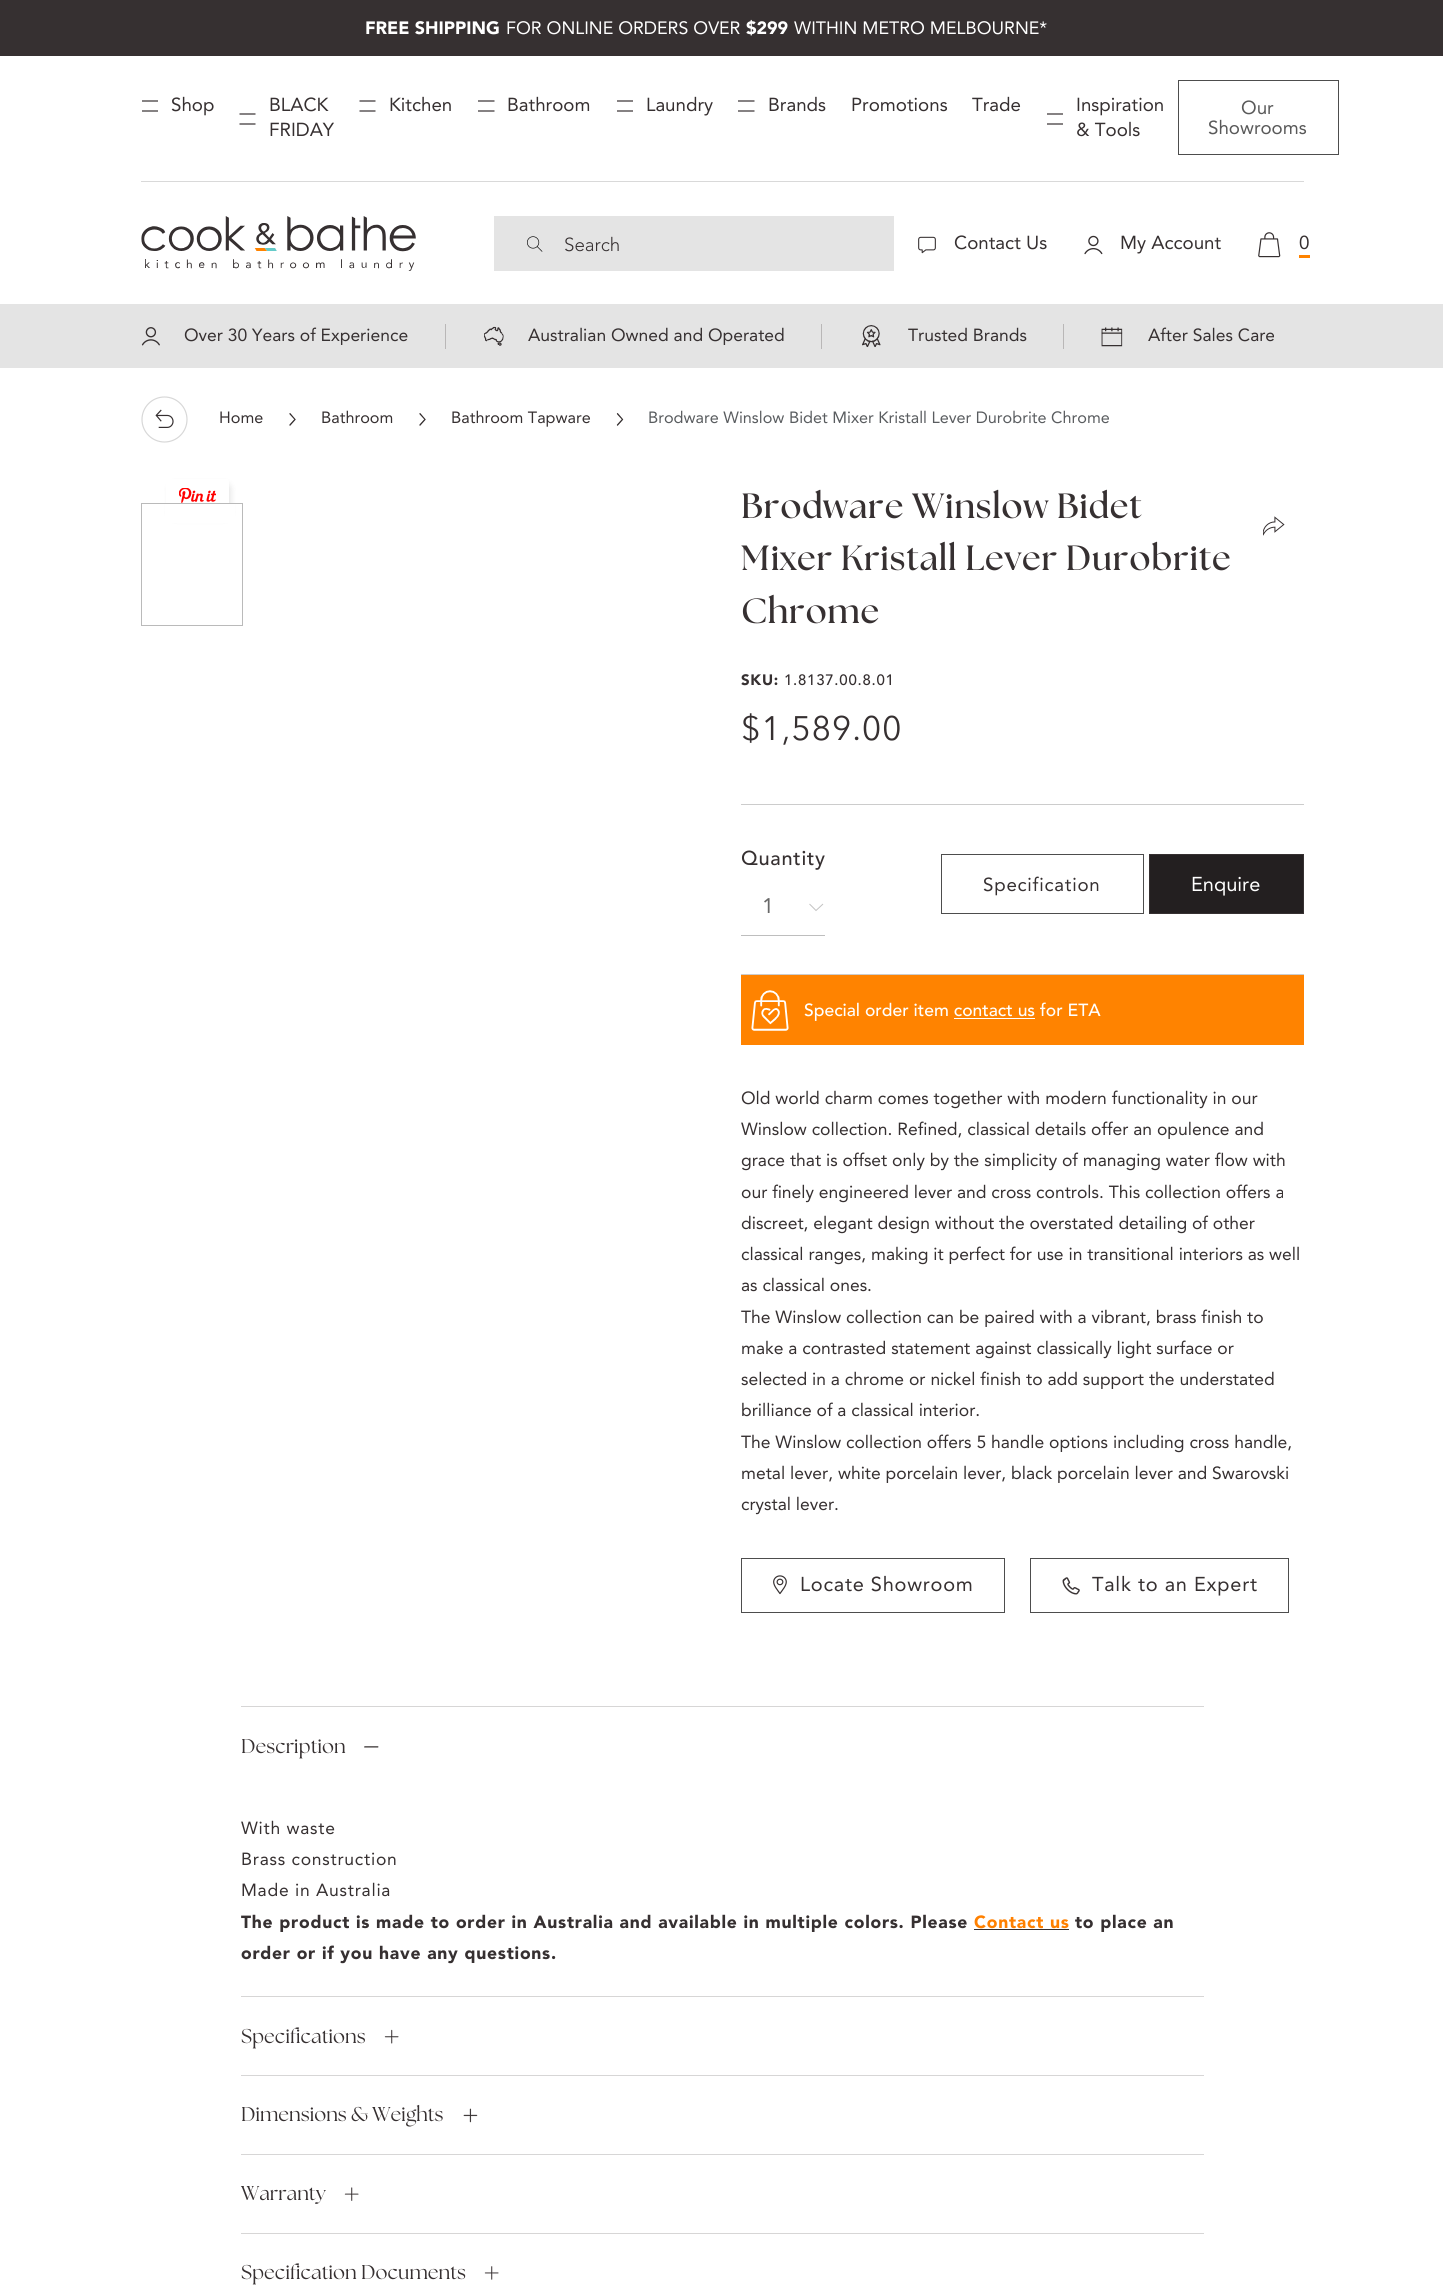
import math
import cairo

surface = cairo.ImageSurface(cairo.Format.RGB24, 1443, 2292)
ctx = cairo.Context(surface)
options = cairo.FontOptions()
options.set_hint_metrics(cairo.HintMetrics.OFF)
options.set_hint_style(cairo.HintStyle.NONE)
ctx.set_font_options(options)
ctx.set_miter_limit(4)


def ink(r, g, b):
    ctx.set_source_rgb(r / 255, g / 255, b / 255)


def write(x, y, s, family, size, color, bold=False, italic=False):
    ctx.select_font_face(family, cairo.FontSlant.ITALIC if italic else cairo.FontSlant.NORMAL, cairo.FontWeight.BOLD if bold else cairo.FontWeight.NORMAL)
    ctx.set_font_size(size)
    ink(*color)
    ctx.move_to(x, y)
    ctx.show_text(s)


def write_spaced(x, y, s, letter, word):
    ctx.move_to(x, y)
    for ch in s:
        ctx.show_text(ch)
        ctx.rel_move_to(letter + word * (ch == ' '), 0)


def block(x, y, w, h, *color):
    ink(*color)
    ctx.rectangle(x, y, w, h)
    ctx.fill()


def round_path(x, y, w, h, r):
    ctx.new_sub_path()
    for i, (u, v) in enumerate([(x + w - r, y + h - r), (x + r, y + h - r), (x + r, y + r), (x + w - r, y + r)]):
        ctx.arc(u, v, r, i * math.pi / 2, (i + 1) * math.pi / 2)
    ctx.close_path()


def blur_box(x, y, w, h, r, blur, alpha):
    ctx.push_group_with_content(cairo.Content.ALPHA)
    ctx.set_operator(cairo.Operator.SOURCE)
    for i in range(15, -16, -2):
        e = blur * i / 6
        if min(w, h) + 2 * e > 0:
            ctx.set_source_rgba(0, 0, 0, alpha * math.erfc((i - 1) / 8.5) / 2)
            round_path(x - e, y - e, w + 2 * e, h + 2 * e, max(0, min(r + e + blur * .6, min(w, h) / 2 + e)))
            ctx.fill()
    ctx.mask(ctx.pop_group())


def paste(path, x, y, w, h):
    ctx.save()
    ctx.set_source_surface(cairo.ImageSurface.create_from_png(path), x, y)
    ctx.rectangle(x, y, w, h)
    ctx.fill()
    ctx.restore()


s1 = dict(family="Avenir Black", size=17.8, color=(255, 255, 255))
s2 = dict(family="Avenir", size=17.8, color=(255, 255, 255))
s3 = dict(family="Avenir", size=18.75, color=(54, 48, 49))
s4 = dict(family="Avenir", size=18.75, color=(89, 89, 89))
s5 = dict(family="Avenir Light", size=18.75, color=(54, 48, 49))
s6 = dict(family="Avenir", size=17.5, color=(54, 48, 49))
s7 = dict(family="Avenir", size=16.25, color=(54, 48, 49))
s8 = dict(family="Avenir", size=16.25, color=(89, 92, 95))
s9 = dict(family="Avenir", size=21, color=(104, 104, 104))
s10 = dict(family="Avenir", size=20, color=(255, 255, 255))
s11 = dict(family="Avenir Medium", size=17.5, color=(255, 255, 255))
s12 = dict(family="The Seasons", size=20, color=(54, 48, 49))

ink(255, 255, 255)
ctx.paint()
block(0, 0, 1443, 56, 54, 48, 49)
write(365, 34, "FREE SHIPPING", **s1)
write(506, 34, "FOR ONLINE ORDERS OVER", **s2)
write(746, 34, "$299", **s1)
write(794, 34, "WITHIN METRO MELBOURNE*", **s2)
ctx.new_path()
ctx.move_to(142, 101)
ctx.line_to(158, 101)
ctx.move_to(142, 111)
ctx.line_to(158, 111)
ink(54, 48, 49)
ctx.set_line_width(1.2)
ctx.stroke()
write(171, 111, "Shop", **s3)
ctx.new_path()
ctx.move_to(239.5, 114)
ctx.line_to(255.5, 114)
ctx.move_to(239.5, 124)
ctx.line_to(255.5, 124)
ctx.stroke()
write(269, 111, "BLACK", **s3)
write(269, 136, "FRIDAY", **s3)
ctx.new_path()
ctx.move_to(359.5, 101)
ctx.line_to(375.5, 101)
ctx.move_to(359.5, 111)
ctx.line_to(375.5, 111)
ctx.stroke()
write(389, 111, "Kitchen", **s3)
ctx.new_path()
ctx.move_to(478, 101)
ctx.line_to(494.5, 101)
ctx.move_to(478, 111)
ctx.line_to(494.5, 111)
ctx.stroke()
write(507, 111, "Bathroom", **s3)
ctx.new_path()
ctx.move_to(617, 101)
ctx.line_to(633, 101)
ctx.move_to(617, 111)
ctx.line_to(633, 111)
ctx.stroke()
write(646, 111, "Laundry", **s3)
ctx.new_path()
ctx.move_to(738, 101)
ctx.line_to(754.5, 101)
ctx.move_to(738, 111)
ctx.line_to(754.5, 111)
ctx.stroke()
write(768, 111, "Brands", **s3)
write(851, 111, "Promotions", **s3)
write(972, 111, "Trade", **s3)
ctx.new_path()
ctx.move_to(1047, 114)
ctx.line_to(1063, 114)
ctx.move_to(1047, 124)
ctx.line_to(1063, 124)
ctx.stroke()
write(1076, 111, "Inspiration", **s3)
write(1076, 136, "& Tools", **s3)
ctx.rectangle(1178.5, 80.5, 160, 74)
ink(77, 77, 77)
ctx.set_line_width(1)
ctx.stroke()
write(1241, 114, "Our", **s4)
write(1208, 134, "Showrooms", **s4)
block(141, 181, 1163, 1, 217, 217, 217)
paste("pic1.png", 141, 216, 275, 55)
block(494, 216, 400, 55, 228, 228, 228)
paste("pic2.png", 527, 236, 16, 16)
write(564, 251, "Search", **s5)
paste("pic3.png", 918, 236, 18, 18)
write(954, 249, "Contact Us", **s3)
paste("pic4.png", 1084, 235, 19, 20)
write(1120, 249, "My Account", **s3)
paste("pic5.png", 1258, 232, 23, 26)
write(1299, 249, "0", **s3)
block(1299, 255, 11, 3, 255, 131, 0)
block(0, 304, 1443, 64, 228, 228, 228)
paste("pic6.png", 141, 327, 19, 19)
write(184, 341, "Over 30 Years of Experience", **s6)
block(445, 324, 1, 25, 185, 183, 183)
paste("pic7.png", 484, 326, 20, 20)
write(528, 341, "Australian Owned and Operated", **s6)
block(821, 324, 1, 25, 185, 183, 183)
paste("pic8.png", 862, 325, 19, 23)
write(908, 341, "Trusted Brands", **s6)
block(1063, 324, 1, 25, 185, 183, 183)
paste("pic9.png", 1101, 327, 22, 20)
write(1148, 341, "After Sales Care", **s6)
paste("pic10.png", 141, 396, 47, 47)
write(219, 423, "Home", **s7)
paste("pic11.png", 289, 413, 7, 13)
write(321, 423, "Bathroom", **s7)
paste("pic11.png", 419, 413, 7, 13)
write(451, 423, "Bathroom Tapware", **s7)
paste("pic12.png", 616, 413, 8, 13)
write(648, 423, "Brodware Winslow Bidet Mixer Kristall Lever Durobrite Chrome", **s8)
ink(0, 0, 0)
blur_box(169, 483, 62, 36, 6, 3, 0.1)
ctx.save()
ctx.rectangle(166, 479, 538, 445)
ctx.clip()
ink(255, 255, 255)
round_path(166, 476, 63, 37, 6)
ctx.fill()
ctx.restore()
paste("pic13.png", 179, 488, 37, 15)
block(165, 504, 70, 19, 255, 255, 255)
ctx.rectangle(141.5, 503.5, 101, 122)
ink(186, 186, 186)
ctx.stroke()
ctx.select_font_face("The Seasons", cairo.FontSlant.NORMAL, cairo.FontWeight.BOLD)
ctx.set_font_size(35)
ink(54, 48, 49)
write_spaced(741, 518, "Brodware Winslow Bidet", 0.75, 0)
write_spaced(741, 570, "Mixer Kristall Lever Durobrite", 0.75, 0)
write_spaced(741, 623, "Chrome", 0.75, 0)
paste("pic14.png", 1263, 516, 22, 20)
ctx.select_font_face("Avenir Black")
ctx.set_font_size(15)
write_spaced(741, 685, "SKU:", 0.75, 0)
ctx.select_font_face("Avenir Medium")
write_spaced(784, 685, "1.8137.00.8.01", 0.75, 0)
ctx.select_font_face("Avenir Next")
ctx.set_font_size(33.75)
write_spaced(741, 740, "$1,589.00", 0.75, 0)
block(741, 804, 563, 1, 204, 204, 204)
block(741, 974, 563, 1, 204, 204, 204)
ctx.select_font_face("Avenir Medium")
ctx.set_font_size(20)
ink(54, 48, 49)
write_spaced(741, 865, "Quantity", 0.75, 0)
ctx.new_path()
ctx.move_to(809.5, 904)
ctx.line_to(816, 910.5)
ctx.line_to(823, 904)
ink(195, 195, 195)
ctx.stroke()
block(741, 935, 84, 1, 190, 190, 190)
write(762, 913, "1", **s9)
ctx.rectangle(941.5, 854.5, 202, 59)
ink(77, 77, 77)
ctx.stroke()
ctx.set_font_size(18.75)
ink(54, 48, 49)
write_spaced(983, 891, "Specification", 0.75, 0)
ink(35, 31, 32)
ctx.rectangle(1149.5, 854.5, 154, 59)
ctx.fill_preserve()
ink(54, 48, 49)
ctx.stroke()
write(1191, 891, "Enquire", **s10)
block(741, 975, 563, 70, 255, 131, 0)
paste("pic15.png", 751, 990, 38, 41)
write(804, 1016, "Special order item contact us for ETA", **s11)
block(954, 1018, 81, 1, 255, 255, 255)
write(741, 1104, "Old world charm comes together with modern functionality in our", **s6)
write(741, 1135, "Winslow collection. Refined, classical details offer an opulence and", **s6)
write(741, 1166, "grace that is offset only by the simplicity of managing water flow with", **s6)
write(741, 1198, "our finely engineered lever and cross controls. This collection offers a", **s6)
write(741, 1229, "discreet, elegant design without the overstated detailing of other", **s6)
write(741, 1260, "classical ranges, making it perfect for use in transitional interiors as well", **s6)
write(741, 1291, "as classical ones.", **s6)
write(741, 1323, "The Winslow collection can be paired with a vibrant, brass finish to", **s6)
write(741, 1354, "make a contrasted statement against classically light surface or", **s6)
write(741, 1385, "selected in a chrome or nickel finish to add support the understated", **s6)
write(741, 1416, "brilliance of a classical interior.", **s6)
write(741, 1448, "The Winslow collection offers 5 handle options including cross handle,", **s6)
write(741, 1479, "metal lever, white porcelain lever, black porcelain lever and Swarovski", **s6)
write(741, 1510, "crystal lever.", **s6)
ctx.rectangle(741.5, 1558.5, 263, 54)
ink(77, 77, 77)
ctx.stroke()
paste("pic16.png", 773, 1575, 14, 20)
ctx.set_font_size(20)
ink(54, 48, 49)
write_spaced(800, 1591, "Locate Showroom", 0.75, 0)
ctx.rectangle(1030.5, 1558.5, 258, 54)
ink(77, 77, 77)
ctx.stroke()
paste("pic17.png", 1062, 1577, 18, 18)
ink(54, 48, 49)
write_spaced(1092, 1591, "Talk to an Expert", 0.75, 0)
block(241, 1706, 963, 1, 215, 214, 214)
block(241, 1996, 963, 1, 215, 214, 214)
write(241, 1753, "Description", **s12)
paste("pic18.png", 364, 1746, 15, 2)
ctx.select_font_face("Avenir")
ctx.set_font_size(17.5)
write_spaced(241, 1834, "With waste", 0.75, 0)
write_spaced(241, 1865, "Brass construction", 0.75, 0)
write_spaced(241, 1896, "Made in Australia", 0.75, 0)
ctx.select_font_face("Avenir Black")
write_spaced(241, 1928, "The product is made to order in Australia and available in multiple colors. Please", 0.75, 0)
ink(255, 128, 0)
write_spaced(974, 1928, "Contact us", 0.75, 0)
block(974, 1929, 95, 1, 54, 48, 49)
write_spaced(1075, 1928, "to place an", 0.75, 0)
write_spaced(241, 1959, "order or if you have any questions.", 0.75, 0)
block(241, 2075, 963, 1, 215, 214, 214)
write(241, 2043, "Specifications", **s12)
paste("pic19.png", 384, 2029, 15, 15)
block(241, 2154, 963, 1, 215, 214, 214)
write(241, 2121, "Dimensions & Weights", **s12)
paste("pic20.png", 463, 2108, 15, 15)
block(241, 2233, 963, 1, 215, 214, 214)
write(241, 2200, "Warranty", **s12)
paste("pic21.png", 344, 2187, 15, 14)
write(241, 2279, "Specification Documents", **s12)
paste("pic22.png", 484, 2266, 15, 14)
surface.write_to_png("screenshot.png")
